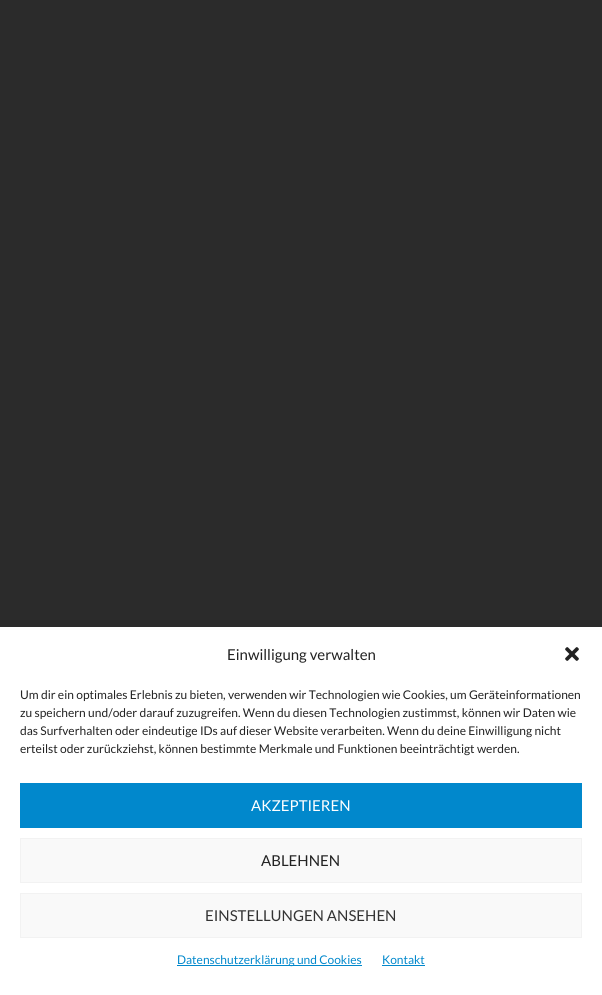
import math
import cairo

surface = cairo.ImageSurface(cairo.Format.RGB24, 602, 995)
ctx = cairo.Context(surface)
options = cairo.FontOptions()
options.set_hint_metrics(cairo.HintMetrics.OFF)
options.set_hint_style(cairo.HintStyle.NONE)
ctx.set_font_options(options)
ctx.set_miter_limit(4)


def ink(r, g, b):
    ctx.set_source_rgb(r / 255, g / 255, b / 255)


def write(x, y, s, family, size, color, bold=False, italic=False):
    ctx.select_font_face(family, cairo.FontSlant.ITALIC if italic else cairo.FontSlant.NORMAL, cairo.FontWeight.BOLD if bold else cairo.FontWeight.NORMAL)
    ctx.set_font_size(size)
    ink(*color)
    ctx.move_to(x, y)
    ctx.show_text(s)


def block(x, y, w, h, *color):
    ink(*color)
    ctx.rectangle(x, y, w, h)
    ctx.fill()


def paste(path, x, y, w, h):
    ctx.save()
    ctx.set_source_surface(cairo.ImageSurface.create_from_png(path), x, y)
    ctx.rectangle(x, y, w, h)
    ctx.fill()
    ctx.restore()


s1 = dict(family="Lato", size=15, color=(34, 34, 34))
s2 = dict(family="Lato", size=12, color=(34, 34, 34))
s3 = dict(family="Lato", size=15, color=(255, 255, 255))
s4 = dict(family="Lato", size=15, color=(51, 51, 51))
s5 = dict(family="Lato", size=12, color=(1, 136, 204))

ink(43, 43, 43)
ctx.paint()
block(0, 627, 602, 368, 255, 255, 255)
write(227, 660, "Einwilligung verwalten", **s1)
paste("pic1.png", 565, 647, 14, 14)
write(20, 699, "Um dir ein optimales Erlebnis zu bieten, verwenden wir Technologien wie Cookies, um Geräteinformationen", **s2)
write(20, 717, "zu speichern und/oder darauf zuzugreifen. Wenn du diesen Technologien zustimmst, können wir Daten wie", **s2)
write(20, 735, "das Surfverhalten oder eindeutige IDs auf dieser Website verarbeiten. Wenn du deine Einwilligung nicht", **s2)
write(20, 753, "erteilst oder zurückziehst, können bestimmte Merkmale und Funktionen beeinträchtigt werden.", **s2)
block(20, 783, 562, 45, 1, 136, 204)
write(251, 811, "AKZEPTIEREN", **s3)
ink(249, 249, 249)
ctx.rectangle(20.5, 838.5, 561, 44)
ctx.fill_preserve()
ink(242, 242, 242)
ctx.set_line_width(1)
ctx.stroke()
write(261, 866, "ABLEHNEN", **s1)
ink(249, 249, 249)
ctx.rectangle(20.5, 893.5, 561, 44)
ctx.fill_preserve()
ink(242, 242, 242)
ctx.stroke()
write(205, 921, "EINSTELLUNGEN ANSEHEN", **s4)
block(177, 965, 185, 1, 1, 136, 204)
write(177, 964, "Datenschutzerklärung und Cookies", **s5)
write(382, 964, "Kontakt", **s5)
block(382, 965, 43, 1, 1, 136, 204)
surface.write_to_png("screenshot.png")
